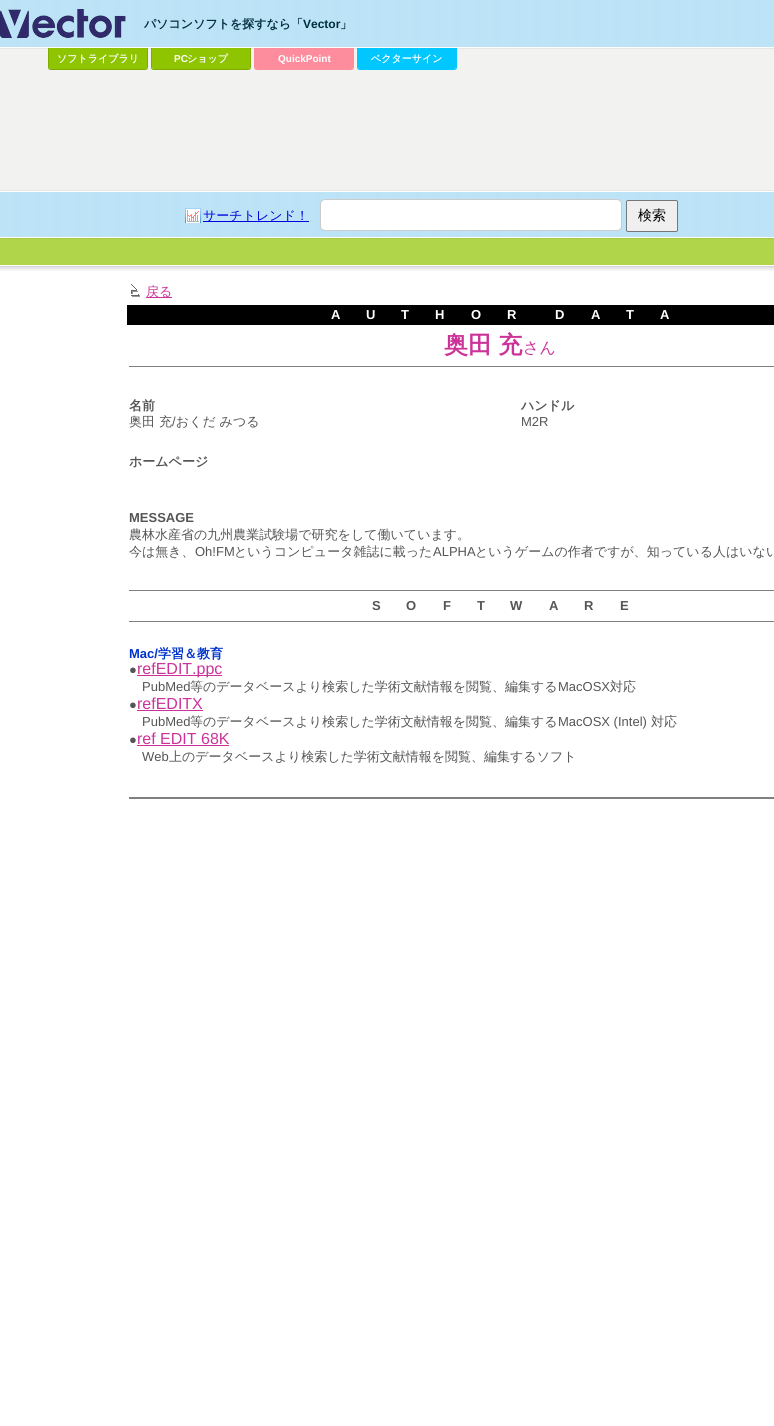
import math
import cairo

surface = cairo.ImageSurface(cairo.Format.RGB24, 774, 1426)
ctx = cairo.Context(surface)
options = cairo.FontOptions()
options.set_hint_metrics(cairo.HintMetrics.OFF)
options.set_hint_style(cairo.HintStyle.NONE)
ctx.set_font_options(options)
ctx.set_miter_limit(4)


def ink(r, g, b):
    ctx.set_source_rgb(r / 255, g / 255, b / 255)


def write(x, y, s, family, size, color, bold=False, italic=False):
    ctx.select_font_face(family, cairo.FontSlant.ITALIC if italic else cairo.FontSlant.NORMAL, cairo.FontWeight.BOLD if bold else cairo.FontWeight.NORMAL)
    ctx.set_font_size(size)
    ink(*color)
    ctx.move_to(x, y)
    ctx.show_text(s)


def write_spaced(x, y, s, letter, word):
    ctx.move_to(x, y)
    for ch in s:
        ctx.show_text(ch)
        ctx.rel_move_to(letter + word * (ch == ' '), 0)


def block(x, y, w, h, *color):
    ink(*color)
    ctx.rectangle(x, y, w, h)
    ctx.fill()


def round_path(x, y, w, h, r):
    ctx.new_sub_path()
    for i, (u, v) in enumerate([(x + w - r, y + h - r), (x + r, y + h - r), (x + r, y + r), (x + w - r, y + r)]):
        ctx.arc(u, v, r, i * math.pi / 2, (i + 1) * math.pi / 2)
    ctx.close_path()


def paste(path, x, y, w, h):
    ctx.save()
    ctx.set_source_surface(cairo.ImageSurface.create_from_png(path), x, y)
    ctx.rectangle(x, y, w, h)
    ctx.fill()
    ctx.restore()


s1 = dict(family="WenQuanYi Zen Hei", size=12, color=(0, 46, 61), bold=True)
s2 = dict(family="Liberation Sans", size=12, color=(0, 46, 61), bold=True)
s3 = dict(family="WenQuanYi Zen Hei", size=10, color=(255, 255, 255), bold=True)
s4 = dict(family="Liberation Sans", size=10, color=(255, 255, 255), bold=True)
s5 = dict(family="WenQuanYi Zen Hei Medium", size=13, color=(0, 0, 221))
s6 = dict(family="WenQuanYi Zen Hei Medium", size=14, color=(0, 0, 0))
s7 = dict(family="WenQuanYi Zen Hei Medium", size=13, color=(204, 51, 153))
s8 = dict(family="Liberation Sans", size=13, color=(255, 255, 255), bold=True)
s9 = dict(family="WenQuanYi Zen Hei Medium", size=16, color=(204, 51, 153))
s10 = dict(family="WenQuanYi Zen Hei", size=13, color=(85, 85, 85), bold=True)
s11 = dict(family="WenQuanYi Zen Hei Medium", size=13, color=(85, 85, 85))
s12 = dict(family="Liberation Sans", size=13, color=(85, 85, 85))
s13 = dict(family="Liberation Sans", size=13, color=(85, 85, 85), bold=True)
s14 = dict(family="Liberation Sans", size=13, color=(0, 51, 204), bold=True)
s15 = dict(family="WenQuanYi Zen Hei", size=13, color=(0, 51, 204), bold=True)
s16 = dict(family="Liberation Sans", size=16, color=(204, 51, 153))

ink(255, 255, 255)
ctx.paint()
paste("pic1.png", 0, 0, 774, 271)
paste("pic2.png", 0, 9, 126, 29)
write(144, 28, "パソコンソフトを探すなら「", **s1)
write(303, 28, "Vector", **s2)
write(340, 28, "」", **s1)
ink(143, 196, 0)
ctx.new_path()
ctx.move_to(49, 48)
ctx.line_to(147, 48)
ctx.line_to(147, 67)
ctx.curve_to(147, 68, 146, 69, 145, 69)
ctx.line_to(51, 69)
ctx.curve_to(50, 69, 49, 68, 49, 67)
ctx.close_path()
ctx.fill()
ink(126, 172, 0)
ctx.set_fill_rule(cairo.FillRule.EVEN_ODD)
ctx.new_path()
ctx.move_to(48, 48)
ctx.line_to(148, 48)
ctx.line_to(148, 67)
ctx.curve_to(148, 69, 147, 70, 145, 70)
ctx.line_to(51, 70)
ctx.curve_to(49, 70, 48, 69, 48, 67)
ctx.close_path()
ctx.move_to(49, 48)
ctx.line_to(147, 48)
ctx.line_to(147, 67)
ctx.curve_to(147, 68, 146, 69, 145, 69)
ctx.line_to(51, 69)
ctx.curve_to(50, 69, 49, 68, 49, 67)
ctx.close_path()
ctx.fill()
write(57, 62, "ソフトライブラリ", **s3)
ink(143, 196, 0)
ctx.new_path()
ctx.move_to(152, 48)
ctx.line_to(250, 48)
ctx.line_to(250, 67)
ctx.curve_to(250, 68, 249, 69, 248, 69)
ctx.line_to(154, 69)
ctx.curve_to(153, 69, 152, 68, 152, 67)
ctx.close_path()
ctx.fill()
ink(126, 172, 0)
ctx.new_path()
ctx.move_to(151, 48)
ctx.line_to(251, 48)
ctx.line_to(251, 67)
ctx.curve_to(251, 69, 250, 70, 248, 70)
ctx.line_to(154, 70)
ctx.curve_to(152, 70, 151, 69, 151, 67)
ctx.close_path()
ctx.move_to(152, 48)
ctx.line_to(250, 48)
ctx.line_to(250, 67)
ctx.curve_to(250, 68, 249, 69, 248, 69)
ctx.line_to(154, 69)
ctx.curve_to(153, 69, 152, 68, 152, 67)
ctx.close_path()
ctx.fill()
write(174, 62, "PC", **s4)
write(187, 62, "ショップ", **s3)
ink(253, 140, 157)
ctx.new_path()
ctx.move_to(255, 48)
ctx.line_to(353, 48)
ctx.line_to(353, 67)
ctx.curve_to(353, 68, 352, 69, 351, 69)
ctx.line_to(257, 69)
ctx.curve_to(256, 69, 255, 68, 255, 67)
ctx.close_path()
ctx.fill()
ctx.new_path()
ctx.move_to(254, 48)
ctx.line_to(354, 48)
ctx.line_to(354, 67)
ctx.curve_to(354, 69, 353, 70, 351, 70)
ctx.line_to(257, 70)
ctx.curve_to(255, 70, 254, 69, 254, 67)
ctx.close_path()
ctx.move_to(255, 48)
ctx.line_to(353, 48)
ctx.line_to(353, 67)
ctx.curve_to(353, 68, 352, 69, 351, 69)
ctx.line_to(257, 69)
ctx.curve_to(256, 69, 255, 68, 255, 67)
ctx.close_path()
ctx.fill()
write(278, 62, "QuickPoint", **s4)
ink(0, 200, 255)
ctx.new_path()
ctx.move_to(358, 48)
ctx.line_to(456, 48)
ctx.line_to(456, 67)
ctx.curve_to(456, 68, 455, 69, 454, 69)
ctx.line_to(360, 69)
ctx.curve_to(359, 69, 358, 68, 358, 67)
ctx.close_path()
ctx.fill()
ctx.new_path()
ctx.move_to(357, 48)
ctx.line_to(457, 48)
ctx.line_to(457, 67)
ctx.curve_to(457, 69, 456, 70, 454, 70)
ctx.line_to(360, 70)
ctx.curve_to(358, 70, 357, 69, 357, 67)
ctx.close_path()
ctx.move_to(358, 48)
ctx.line_to(456, 48)
ctx.line_to(456, 67)
ctx.curve_to(456, 68, 455, 69, 454, 69)
ctx.line_to(360, 69)
ctx.curve_to(359, 69, 358, 68, 358, 67)
ctx.close_path()
ctx.fill()
write(371, 62, "ベクターサイン", **s3)
paste("pic3.png", 185, 208, 16, 15)
block(203, 221, 106, 1, 0, 0, 221)
write(203, 220, "サーチトレンド！", **s5)
ink(255, 255, 255)
round_path(320.5, 199.5, 301, 31, 4.5)
ctx.fill_preserve()
ink(204, 204, 204)
ctx.set_line_width(1)
ctx.stroke()
ink(239, 239, 239)
round_path(626.5, 200.5, 51, 31, 1.5)
ctx.fill_preserve()
ink(118, 118, 118)
ctx.stroke()
write(638, 220, "検索", **s6)
paste("pic4.png", 131, 284, 9, 13)
block(146, 297, 26, 1, 204, 51, 153)
write(146, 296, "戻る", **s7)
block(127, 305, 647, 20, 0, 0, 0)
write(331, 319, "A", **s8)
write(366, 319, "U", **s8)
write(401, 319, "T", **s8)
write(435, 319, "H", **s8)
write(471, 319, "O", **s8)
write(507, 319, "R", **s8)
write(555, 319, "D", **s8)
write(591, 319, "A", **s8)
write(626, 319, "T", **s8)
write(660, 319, "A", **s8)
ctx.select_font_face("WenQuanYi Zen Hei", cairo.FontSlant.NORMAL, cairo.FontWeight.BOLD)
ctx.set_font_size(24)
ink(204, 51, 153)
write_spaced(444, 353, "奥田 充", 0, -1)
write(523, 353, "さん", **s9)
block(129, 366, 645, 1, 128, 128, 128)
write(129, 410, "名前", **s10)
write(129, 426, "奥田 充 おくだ みつる", **s11)
write(172, 426, "/", **s12)
write(521, 410, "ハンドル", **s10)
write(521, 426, "M2R", **s12)
write(129, 466, "ホームページ", **s10)
write(129, 522, "MESSAGE", **s13)
write(129, 539, "農林水産省の九州農業試験場で研究をして働いています。", **s11)
write(129, 556, "今は無き、", **s11)
write(195, 556, "Oh!FM", **s12)
write(234, 556, "というコンピュータ雑誌に載った", **s11)
write(433, 556, "ALPHA", **s12)
write(475, 556, "というゲームの作者ですが、知っている人はいない", **s11)
block(129, 590, 645, 1, 128, 128, 128)
write(372, 610, "S", **s13)
write(406, 610, "O", **s13)
write(443, 610, "F", **s13)
write(477, 610, "T", **s13)
write(510, 610, "W", **s13)
write(549, 610, "A", **s13)
write(584, 610, "R", **s13)
write(620, 610, "E", **s13)
block(129, 621, 645, 1, 128, 128, 128)
write(129, 658, "Mac/", **s14)
write(158, 658, "学習＆教育", **s15)
write(129, 674, "●", **s12)
block(137, 675, 85, 1, 204, 51, 153)
write(137, 674, "refEDIT.ppc", **s16)
write(142, 691, "PubMed", **s12)
write(190, 691, "等のデータベースより検索した学術文献情報を閲覧、編集する", **s11)
write(558, 691, "MacOSX", **s12)
write(610, 691, "対応", **s11)
write(129, 709, "●", **s12)
write(137, 709, "refEDITX", **s16)
block(137, 710, 66, 1, 204, 51, 153)
write(142, 726, "PubMed", **s12)
write(190, 726, "等のデータベースより検索した学術文献情報を閲覧、編集する", **s11)
write(558, 726, "MacOSX (Intel)", **s12)
write(651, 726, "対応", **s11)
write(129, 744, "●", **s12)
write(137, 744, "ref EDIT 68K", **s16)
block(137, 745, 92, 1, 204, 51, 153)
write(142, 761, "Web", **s12)
write(169, 761, "上のデータベースより検索した学術文献情報を閲覧、編集するソフト", **s11)
block(129, 797, 645, 2, 128, 128, 128)
surface.write_to_png("screenshot.png")
